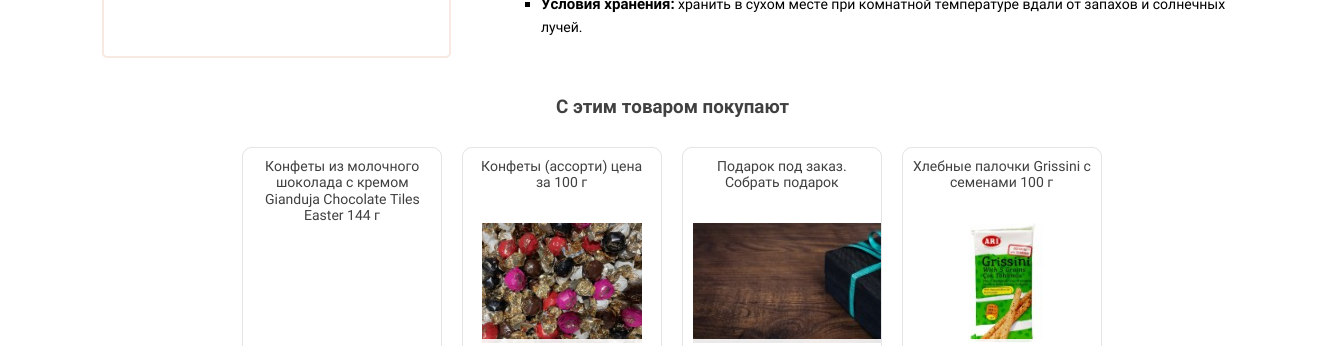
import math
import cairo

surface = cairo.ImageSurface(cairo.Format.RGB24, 1344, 346)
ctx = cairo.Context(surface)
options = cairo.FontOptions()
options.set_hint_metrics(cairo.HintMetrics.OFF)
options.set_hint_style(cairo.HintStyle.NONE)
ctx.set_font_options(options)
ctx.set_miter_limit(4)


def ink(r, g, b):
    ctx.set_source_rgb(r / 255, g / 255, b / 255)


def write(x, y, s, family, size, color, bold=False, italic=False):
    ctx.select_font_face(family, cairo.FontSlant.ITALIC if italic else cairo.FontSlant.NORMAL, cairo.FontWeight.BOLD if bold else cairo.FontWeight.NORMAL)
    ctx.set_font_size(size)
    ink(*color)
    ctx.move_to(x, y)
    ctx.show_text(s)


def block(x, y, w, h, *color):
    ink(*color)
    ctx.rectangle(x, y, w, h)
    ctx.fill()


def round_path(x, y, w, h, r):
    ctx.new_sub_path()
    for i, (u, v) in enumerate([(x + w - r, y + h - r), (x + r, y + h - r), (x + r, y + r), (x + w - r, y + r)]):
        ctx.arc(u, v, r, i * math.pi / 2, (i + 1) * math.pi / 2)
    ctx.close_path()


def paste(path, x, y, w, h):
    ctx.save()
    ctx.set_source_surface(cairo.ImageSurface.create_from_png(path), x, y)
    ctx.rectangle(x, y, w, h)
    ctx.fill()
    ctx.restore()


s1 = dict(family="Roboto", size=15, color=(0, 0, 0), bold=True)
s2 = dict(family="Roboto", size=14, color=(0, 0, 0))
s3 = dict(family="Roboto", size=18.75, color=(64, 64, 64), bold=True)
s4 = dict(family="Roboto", size=14, color=(64, 64, 64))

ink(255, 255, 255)
ctx.paint()
round_path(103, -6, 347, 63, 4)
ink(247, 233, 225)
ctx.stroke()
block(525, 2, 5, 5, 0, 0, 0)
write(541, 9, "Условия хранения:", **s1)
write(678, 9, "хранить в сухом месте при комнатной температуре вдали от запахов и солнечных", **s2)
write(541, 32, "лучей.", **s2)
write(556, 113, "С этим товаром покупают", **s3)
round_path(242.5, 147.5, 199, 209, 9.5)
ink(229, 229, 229)
ctx.set_line_width(1)
ctx.stroke()
write(265, 171, "Конфеты из молочного", **s4)
write(276, 187, "шоколада с кремом", **s4)
write(265, 204, "Gianduja Chocolate Tiles", **s4)
write(304, 220, "Easter 144 г", **s4)
round_path(462.5, 147.5, 199, 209, 9.5)
ink(229, 229, 229)
ctx.stroke()
write(481, 171, "Конфеты (ассорти) цена", **s4)
write(536, 187, "за 100 г", **s4)
paste("pic1.png", 482, 223, 160, 120)
ctx.set_source_rgba(1, 1, 1, 0.9)
ctx.rectangle(482, 339, 160, 4)
ctx.fill()
round_path(682.5, 147.5, 199, 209, 9.5)
ink(229, 229, 229)
ctx.stroke()
write(717, 171, "Подарок под заказ.", **s4)
write(725, 187, "Собрать подарок", **s4)
paste("pic2.png", 693, 223, 188, 120)
ctx.set_source_rgba(1, 1, 1, 0.9)
ctx.rectangle(693, 339, 188, 4)
ctx.fill()
round_path(902.5, 147.5, 199, 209, 9.5)
ink(229, 229, 229)
ctx.stroke()
write(913, 171, "Хлебные палочки Grissini с", **s4)
write(950, 187, "семенами 100 г", **s4)
paste("pic3.png", 969, 223, 74, 120)
ctx.set_source_rgba(1, 1, 1, 0.9)
ctx.rectangle(969, 339, 74, 4)
ctx.fill()
surface.write_to_png("screenshot.png")
